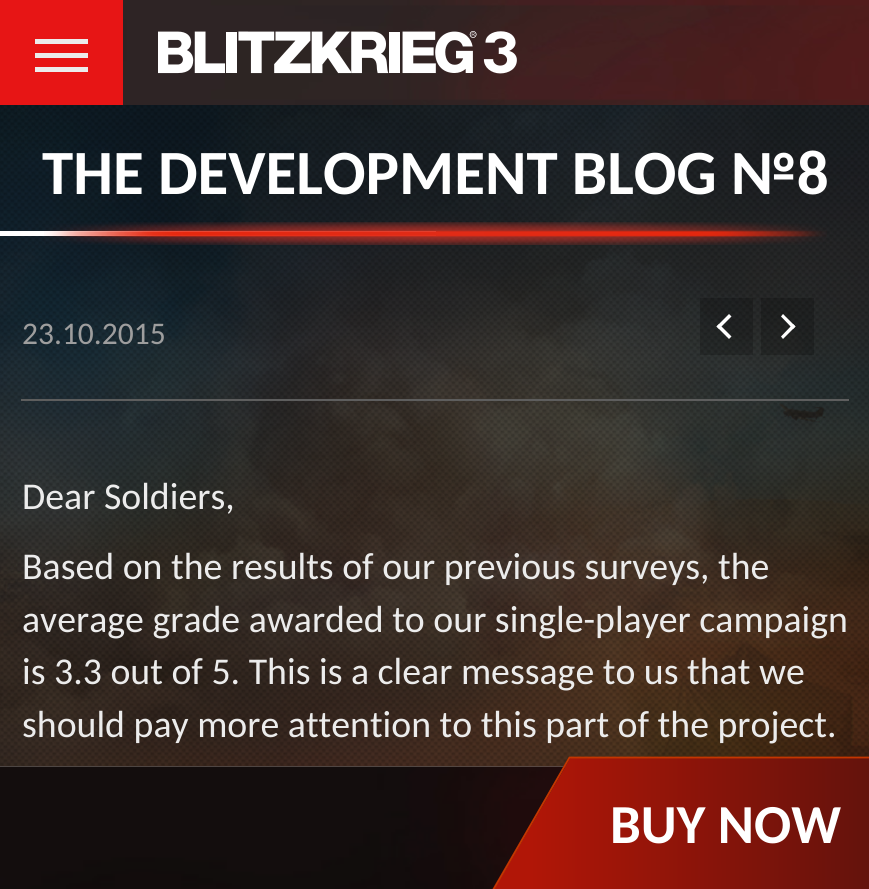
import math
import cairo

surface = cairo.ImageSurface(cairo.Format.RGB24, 869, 889)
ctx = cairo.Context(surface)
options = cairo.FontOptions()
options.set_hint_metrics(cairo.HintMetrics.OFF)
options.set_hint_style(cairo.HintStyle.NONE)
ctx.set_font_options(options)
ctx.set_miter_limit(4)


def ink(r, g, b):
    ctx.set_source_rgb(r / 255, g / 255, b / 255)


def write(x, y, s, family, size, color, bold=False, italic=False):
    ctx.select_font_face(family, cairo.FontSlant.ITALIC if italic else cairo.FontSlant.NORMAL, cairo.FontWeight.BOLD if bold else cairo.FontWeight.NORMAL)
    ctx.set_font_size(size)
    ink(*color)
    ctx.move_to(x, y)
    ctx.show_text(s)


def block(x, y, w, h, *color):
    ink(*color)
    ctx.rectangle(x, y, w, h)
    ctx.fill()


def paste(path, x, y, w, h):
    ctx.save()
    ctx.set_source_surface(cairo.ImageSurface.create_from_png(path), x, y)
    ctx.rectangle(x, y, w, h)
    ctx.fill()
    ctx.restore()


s1 = dict(family="Carlito", size=63, color=(255, 255, 255), bold=True)
s2 = dict(family="Carlito", size=31.5, color=(158, 158, 158))
s3 = dict(family="Carlito", size=37.8, color=(236, 236, 236))
s4 = dict(family="Carlito", size=55, color=(255, 255, 255), bold=True)

ink(255, 255, 255)
ctx.paint()
paste("pic1.png", 123, 0, 746, 105)
block(0, 0, 123, 105, 231, 21, 21)
block(35, 53, 53, 5, 236, 236, 236)
block(35, 39, 53, 5, 236, 236, 236)
block(35, 67, 53, 5, 236, 236, 236)
paste("pic2.png", 158, 31, 359, 43)
paste("pic3.png", 0, 105, 869, 662)
paste("pic4.png", 0, 105, 869, 662)
write(42, 194, "THE DEVELOPMENT BLOG №8", **s1)
block(0, 231, 436, 5, 255, 255, 255)
paste("pic5.png", 44, 222, 783, 23)
write(22, 344, "23.10.2015", **s2)
ctx.set_source_rgba(0, 0, 0, 0.2)
ctx.rectangle(700, 298, 53, 57)
ctx.fill()
ink(255, 255, 255)
ctx.new_path()
ctx.move_to(719, 324)
ctx.line_to(731.5, 336.5)
ctx.line_to(729, 339)
ctx.line_to(716.5, 326.5)
ctx.close_path()
ctx.fill()
ctx.new_path()
ctx.move_to(729, 314)
ctx.line_to(731.5, 316.5)
ctx.line_to(719, 329)
ctx.line_to(716.5, 326.5)
ctx.close_path()
ctx.fill()
ctx.set_source_rgba(0, 0, 0, 0.2)
ctx.rectangle(761, 298, 53, 57)
ctx.fill()
ink(255, 255, 255)
ctx.new_path()
ctx.move_to(783, 314)
ctx.line_to(795.5, 326.5)
ctx.line_to(793, 329)
ctx.line_to(781, 316.5)
ctx.close_path()
ctx.fill()
ctx.new_path()
ctx.move_to(793, 324)
ctx.line_to(795.5, 326.5)
ctx.line_to(783, 339)
ctx.line_to(781, 336.5)
ctx.close_path()
ctx.fill()
block(21, 399, 828, 2, 94, 94, 94)
write(22, 509, "Dear Soldiers,", **s3)
write(22, 579, "Based on the results of our previous surveys, the", **s3)
write(22, 632, "average grade awarded to our single-player campaign", **s3)
write(22, 684, "is 3.3 out of 5. This is a clear message to us that we", **s3)
write(22, 737, "should pay more attention to this part of the project.", **s3)
paste("pic6.png", 0, 766, 566, 123)
gradient = cairo.LinearGradient(142, 825, 531, 825)
gradient.add_color_stop_rgba(0, 0.694, 0.086, 0.027, 1)
gradient.add_color_stop_rgba(1, 0.345, 0.071, 0.051, 1)
ctx.set_source(gradient)
ctx.new_path()
ctx.move_to(492, 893)
ctx.line_to(490, 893)
ctx.line_to(569, 757)
ctx.line_to(571, 757)
ctx.close_path()
ctx.fill()
gradient = cairo.LinearGradient(531, 825, 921, 825)
gradient.add_color_stop_rgba(0, 0.694, 0.086, 0.027, 1)
gradient.add_color_stop_rgba(1, 0.345, 0.071, 0.051, 1)
ctx.set_source(gradient)
ctx.new_path()
ctx.move_to(571, 757)
ctx.line_to(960, 757)
ctx.line_to(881, 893)
ctx.line_to(492, 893)
ctx.close_path()
ctx.fill()
ctx.new_path()
ctx.move_to(569.5, 757.5)
ctx.line_to(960, 757.5)
ctx.line_to(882.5, 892)
ctx.line_to(492, 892)
ctx.close_path()
ink(196, 54, 0)
ctx.set_line_width(1.8)
ctx.stroke()
write(610, 843, "BUY NOW", **s4)
surface.write_to_png("screenshot.png")
